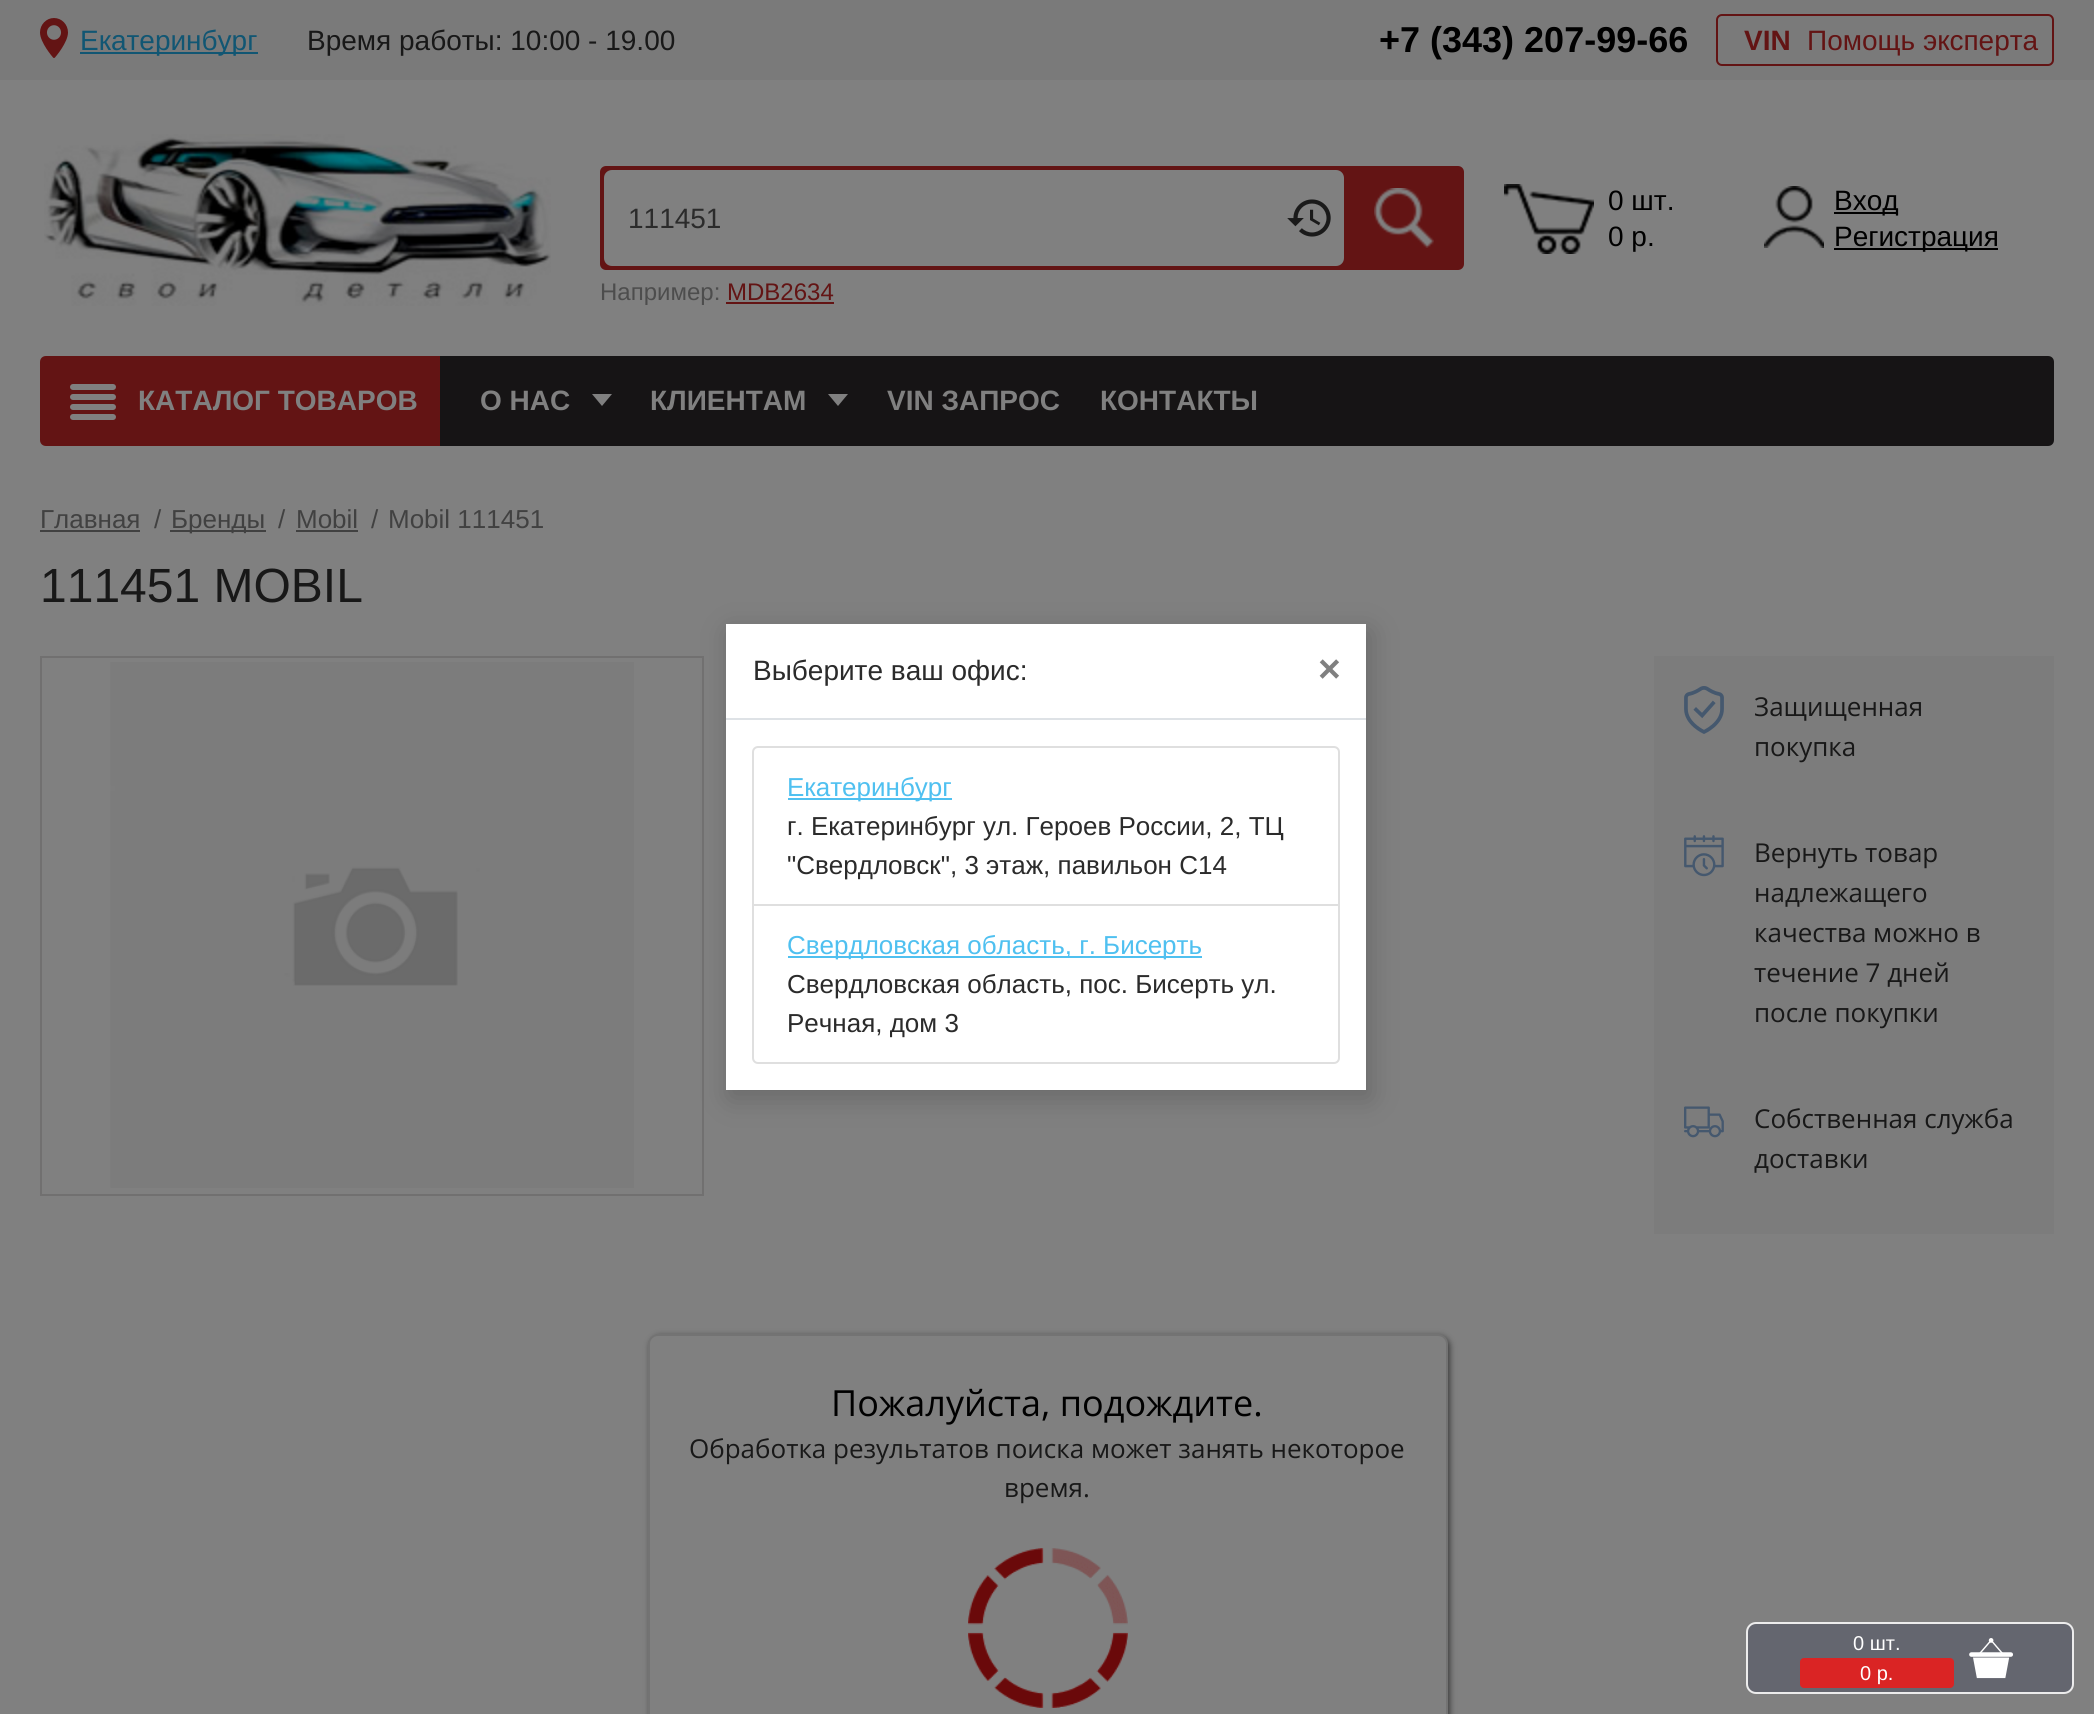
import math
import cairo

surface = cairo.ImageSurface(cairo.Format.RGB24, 2094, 1714)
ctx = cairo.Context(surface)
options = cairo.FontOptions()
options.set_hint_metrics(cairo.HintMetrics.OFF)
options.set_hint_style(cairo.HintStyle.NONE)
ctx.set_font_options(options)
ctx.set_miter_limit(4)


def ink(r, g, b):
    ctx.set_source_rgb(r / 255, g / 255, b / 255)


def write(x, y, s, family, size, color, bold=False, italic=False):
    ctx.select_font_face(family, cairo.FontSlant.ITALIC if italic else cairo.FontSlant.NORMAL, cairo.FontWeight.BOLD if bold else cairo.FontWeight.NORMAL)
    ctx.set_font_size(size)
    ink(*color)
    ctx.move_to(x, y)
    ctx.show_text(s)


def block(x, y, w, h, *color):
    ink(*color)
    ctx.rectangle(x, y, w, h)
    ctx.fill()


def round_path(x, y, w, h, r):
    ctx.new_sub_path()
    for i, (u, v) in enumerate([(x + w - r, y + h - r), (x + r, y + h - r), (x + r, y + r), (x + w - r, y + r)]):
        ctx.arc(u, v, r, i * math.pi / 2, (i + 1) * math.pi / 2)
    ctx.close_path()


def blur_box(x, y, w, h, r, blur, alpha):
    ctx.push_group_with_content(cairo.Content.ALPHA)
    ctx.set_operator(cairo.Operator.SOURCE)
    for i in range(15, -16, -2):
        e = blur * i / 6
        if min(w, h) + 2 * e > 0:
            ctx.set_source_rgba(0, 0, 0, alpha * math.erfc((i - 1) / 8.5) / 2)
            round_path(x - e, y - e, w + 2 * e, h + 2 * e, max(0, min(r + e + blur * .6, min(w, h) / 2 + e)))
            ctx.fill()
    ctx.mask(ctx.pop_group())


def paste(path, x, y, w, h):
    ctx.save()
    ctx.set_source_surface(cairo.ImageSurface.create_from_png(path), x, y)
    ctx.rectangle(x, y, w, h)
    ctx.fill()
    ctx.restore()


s1 = dict(family="Liberation Sans", size=28, color=(17, 86, 115))
s2 = dict(family="Liberation Sans", size=28, color=(24, 24, 24))
s3 = dict(family="Liberation Sans", size=36, color=(0, 0, 0), bold=True)
s4 = dict(family="Liberation Sans", size=28, color=(99, 20, 20), bold=True)
s5 = dict(family="Liberation Sans", size=28, color=(99, 20, 20))
s6 = dict(family="Liberation Sans", size=28, color=(43, 43, 43))
s7 = dict(family="Liberation Sans", size=24, color=(77, 77, 77))
s8 = dict(family="Liberation Sans", size=24, color=(99, 20, 20))
s9 = dict(family="Liberation Sans", size=28, color=(0, 0, 0))
s10 = dict(family="Liberation Sans", size=28, color=(128, 128, 128), bold=True)
s11 = dict(family="Liberation Sans", size=26, color=(65, 65, 65))
s12 = dict(family="Liberation Sans", size=48, color=(24, 24, 24))
s13 = dict(family="Open Sans", size=26, color=(24, 24, 24))
s14 = dict(family="Open Sans", size=36, color=(0, 0, 0))
s15 = dict(family="Liberation Sans", size=39, color=(128, 128, 128), bold=True)
s16 = dict(family="Liberation Sans", size=26, color=(79, 192, 240))
s17 = dict(family="Liberation Sans", size=26, color=(43, 43, 43))
s18 = dict(family="Liberation Sans", size=20, color=(255, 255, 255))

ink(128, 128, 128)
ctx.paint()
block(0, 0, 2094, 80, 122, 122, 122)
paste("pic1.png", 40, 18, 28, 40)
block(80, 52, 178, 2, 17, 86, 115)
write(80, 50, "Eкатеринбург", **s1)
write(307, 50, "Время работы: 10:00 - 19.00", **s2)
write(1379, 52, "+7 (343) 207-99-66", **s3)
round_path(1717, 15, 336, 50, 5)
ink(99, 20, 20)
ctx.stroke()
write(1744, 50, "VIN", **s4)
write(1807, 50, "Помощь эксперта", **s5)
paste("pic2.png", 44, 134, 507, 172)
round_path(600, 166, 864, 104, 6)
ctx.fill()
ink(128, 128, 128)
ctx.new_path()
ctx.move_to(612, 170)
ctx.line_to(1276, 170)
ctx.line_to(1276, 266)
ctx.line_to(612, 266)
ctx.curve_to(607.5, 266, 604, 262.5, 604, 258)
ctx.line_to(604, 178)
ctx.curve_to(604, 173.5, 607.5, 170, 612, 170)
ctx.close_path()
ctx.fill()
write(628, 228, "111451", **s6)
ink(128, 128, 128)
ctx.new_path()
ctx.move_to(1276, 170)
ctx.line_to(1336, 170)
ctx.curve_to(1340.5, 170, 1344, 173.5, 1344, 178)
ctx.line_to(1344, 258)
ctx.curve_to(1344, 262.5, 1340.5, 266, 1336, 266)
ctx.line_to(1276, 266)
ctx.close_path()
ctx.fill()
paste("pic3.png", 1287, 199, 44, 38)
paste("pic4.png", 1374, 188, 60, 60)
write(600, 300, "Например:", **s7)
write(727, 300, "MDB2634", **s8)
block(726, 302, 108, 2, 99, 20, 20)
paste("pic5.png", 1504, 184, 90, 70)
write(1608, 210, "0 шт.", **s9)
write(1608, 246, "0 р.", **s9)
paste("pic6.png", 1764, 186, 60, 62)
block(1834, 212, 64, 2, 0, 0, 0)
write(1834, 210, "Вход", **s9)
block(1834, 248, 164, 2, 0, 0, 0)
write(1834, 246, "Регистрация", **s9)
ink(99, 20, 20)
ctx.new_path()
ctx.move_to(46, 356)
ctx.line_to(440, 356)
ctx.line_to(440, 446)
ctx.line_to(46, 446)
ctx.curve_to(42.5, 446, 40, 443.5, 40, 440)
ctx.line_to(40, 362)
ctx.curve_to(40, 358.5, 42.5, 356, 46, 356)
ctx.close_path()
ctx.fill()
paste("pic7.png", 70, 384, 46, 36)
write(138, 410, "КАТАЛОГ ТОВАРОВ", **s10)
ink(22, 20, 21)
ctx.new_path()
ctx.move_to(440, 356)
ctx.line_to(2048, 356)
ctx.curve_to(2051.5, 356, 2054, 358.5, 2054, 362)
ctx.line_to(2054, 440)
ctx.curve_to(2054, 443.5, 2051.5, 446, 2048, 446)
ctx.line_to(440, 446)
ctx.close_path()
ctx.fill()
write(480, 410, "О НАС", **s10)
ctx.new_path()
ctx.move_to(592, 394)
ctx.line_to(612, 394)
ctx.line_to(602, 406)
ctx.close_path()
ctx.fill()
write(650, 410, "КЛИЕНТАМ", **s10)
ctx.new_path()
ctx.move_to(828, 394)
ctx.line_to(848, 394)
ctx.line_to(838, 406)
ctx.close_path()
ctx.fill()
write(887, 410, "VIN ЗАПРОС", **s10)
write(1100, 410, "КОНТАКТЫ", **s10)
write(40, 528, "Главная", **s11)
block(40, 530, 100, 2, 65, 65, 65)
write(154, 528, "/", **s11)
block(170, 530, 96, 2, 65, 65, 65)
write(171, 528, "Бренды", **s11)
write(278, 528, "/", **s11)
write(296, 528, "Mobil", **s11)
block(296, 530, 62, 2, 65, 65, 65)
write(371, 528, "/", **s11)
write(388, 528, "Mobil 111451", **s11)
write(40, 602, "111451 MOBIL", **s12)
ctx.rectangle(41, 657, 662, 538)
ink(113, 112, 112)
ctx.stroke()
paste("pic8.png", 110, 662, 524, 526)
block(1654, 656, 400, 578, 124, 124, 124)
paste("pic9.png", 1684, 686, 40, 48)
write(1754, 716, "Защищенная", **s13)
write(1754, 756, "покупка", **s13)
paste("pic10.png", 1684, 835, 40, 42)
write(1754, 862, "Вернуть товар", **s13)
write(1754, 902, "надлежащего", **s13)
write(1754, 942, "качества можно в", **s13)
write(1754, 982, "течение 7 дней", **s13)
write(1754, 1022, "после покупки", **s13)
paste("pic11.png", 1684, 1106, 40, 32)
write(1754, 1128, "Собственная служба", **s13)
write(1754, 1168, "доставки", **s13)
ink(60, 60, 60)
blur_box(650, 1336, 800, 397, 10, 3, 1)
ink(128, 128, 128)
round_path(649, 1335, 798, 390, 9)
ctx.fill_preserve()
ink(115, 115, 115)
ctx.stroke()
write(831, 1416, "Пожалуйста, подождите.", **s14)
write(689, 1458, "Обработка результатов поиска может занять некоторое", **s13)
write(1004, 1497, "время.", **s13)
paste("pic12.png", 968, 1548, 160, 160)
ink(0, 0, 0)
blur_box(730, 632, 640, 466, 0, 14, 0.18)
block(726, 624, 640, 466, 255, 255, 255)
block(726, 718, 640, 2, 222, 226, 230)
write(753, 680, "Выберите ваш офис:", **s6)
write(1318, 682, "×", **s15)
round_path(753, 747, 586, 316, 5)
ink(223, 223, 223)
ctx.stroke()
block(754, 904, 584, 2, 223, 223, 223)
block(788, 798, 164, 2, 79, 192, 240)
write(787, 796, "Eкатеринбург", **s16)
write(787, 835, "г. Екатеринбург ул. Героев России, 2, ТЦ", **s17)
write(787, 874, "\"Свердловск\", 3 этаж, павильон C14", **s17)
block(788, 956, 414, 2, 79, 192, 240)
write(787, 954, "Свердловская область, г. Бисерть", **s16)
write(787, 993, "Свердловская область, пос. Бисерть ул.", **s17)
write(787, 1032, "Речная, дом 3", **s17)
ink(100, 102, 111)
round_path(1747, 1623, 326, 70, 9)
ctx.fill_preserve()
ink(236, 236, 236)
ctx.stroke()
paste("pic13.png", 1969, 1638, 44, 41)
write(1853, 1650, "0 шт.", **s18)
ink(218, 36, 36)
round_path(1800, 1658, 154, 30, 4)
ctx.fill()
write(1860, 1680, "0 р.", **s18)
surface.write_to_png("screenshot.png")
